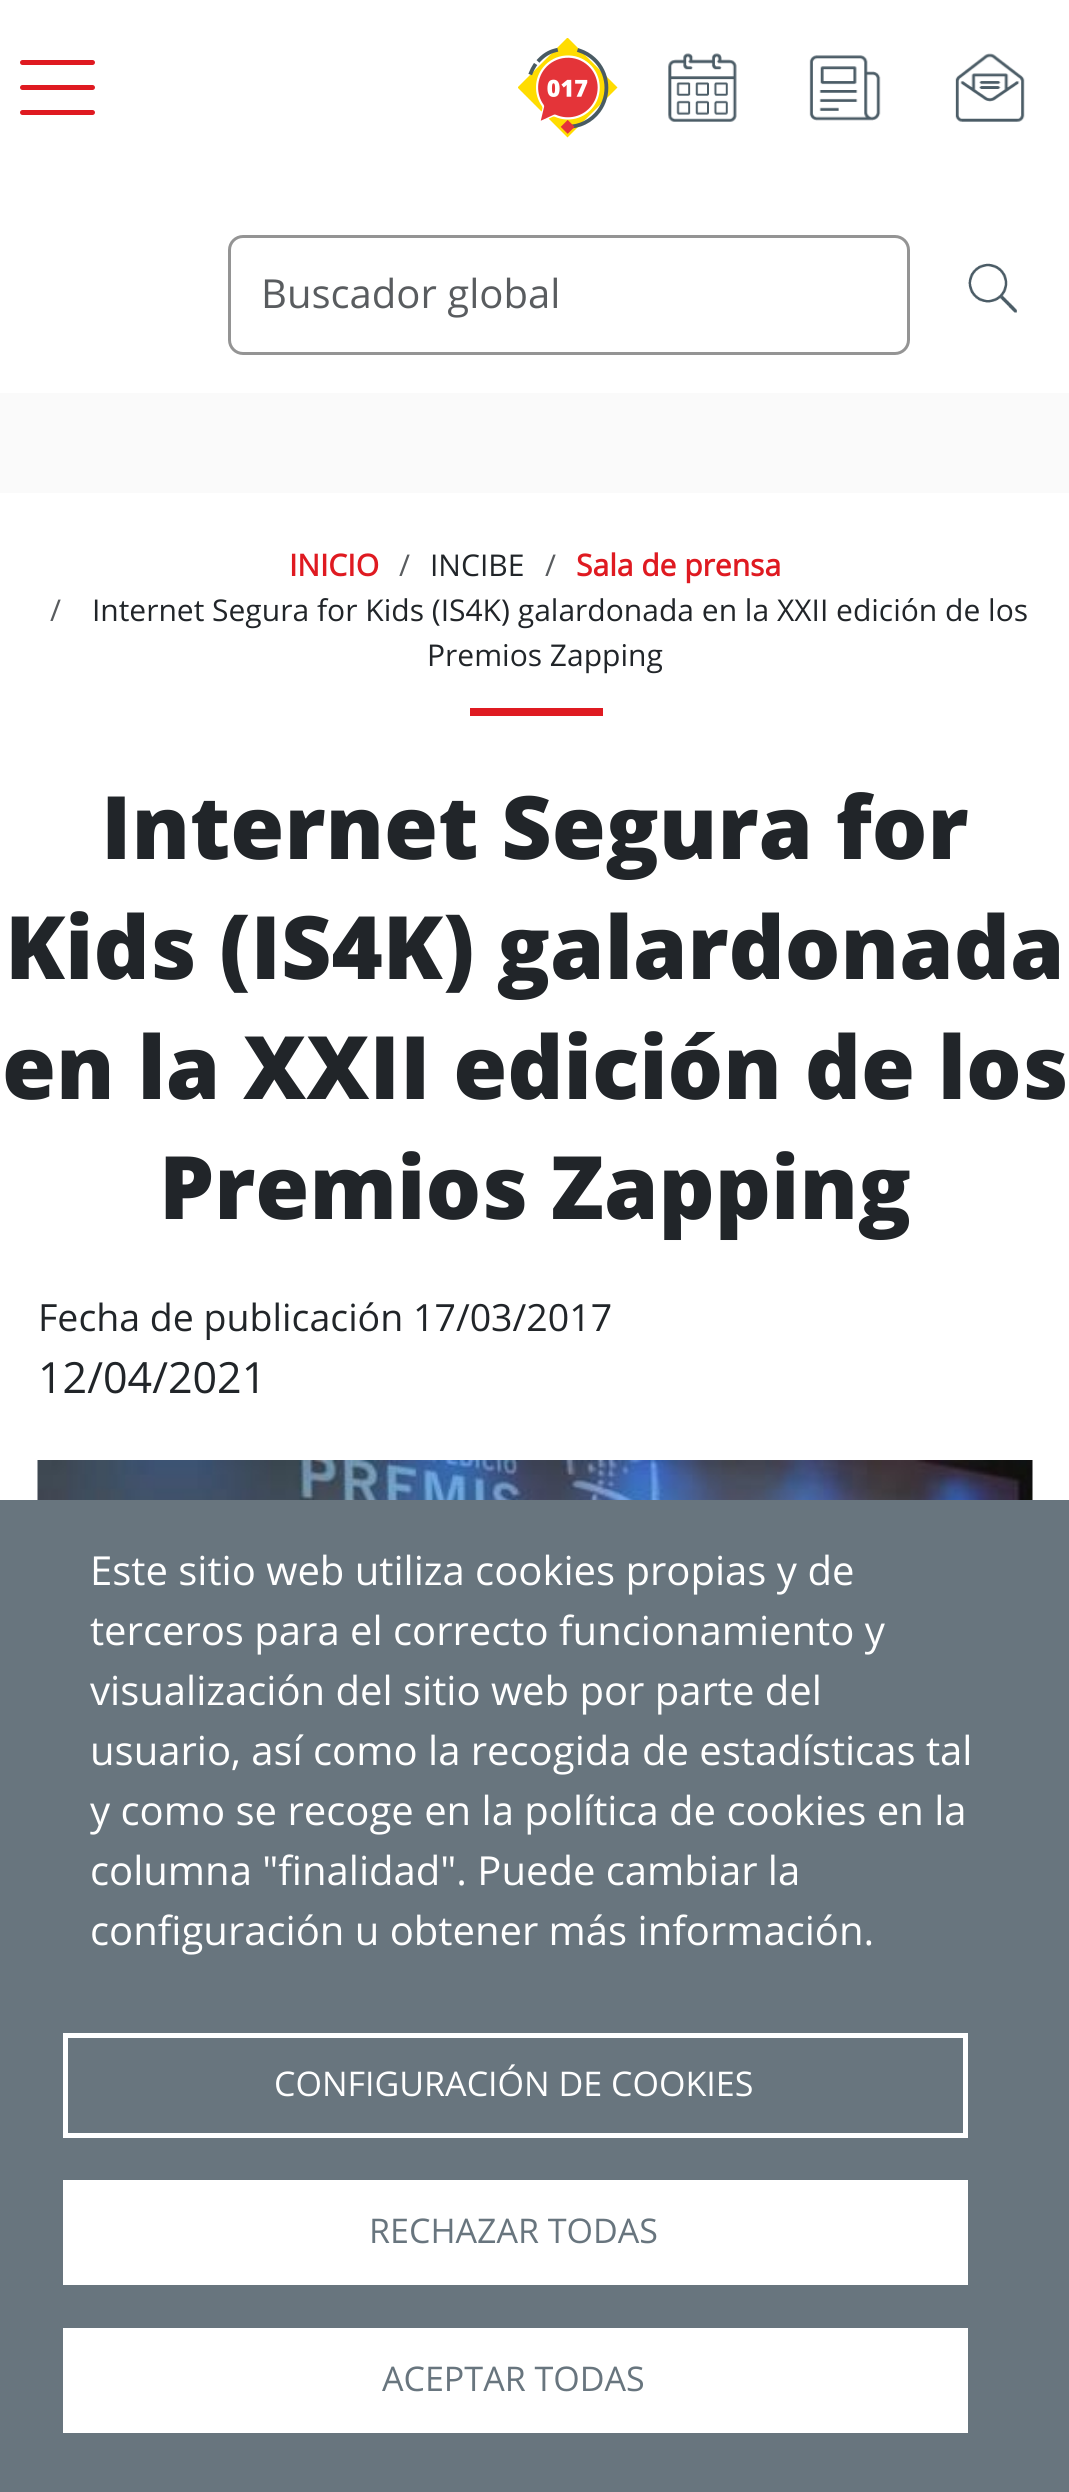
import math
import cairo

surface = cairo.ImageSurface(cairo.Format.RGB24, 1069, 2492)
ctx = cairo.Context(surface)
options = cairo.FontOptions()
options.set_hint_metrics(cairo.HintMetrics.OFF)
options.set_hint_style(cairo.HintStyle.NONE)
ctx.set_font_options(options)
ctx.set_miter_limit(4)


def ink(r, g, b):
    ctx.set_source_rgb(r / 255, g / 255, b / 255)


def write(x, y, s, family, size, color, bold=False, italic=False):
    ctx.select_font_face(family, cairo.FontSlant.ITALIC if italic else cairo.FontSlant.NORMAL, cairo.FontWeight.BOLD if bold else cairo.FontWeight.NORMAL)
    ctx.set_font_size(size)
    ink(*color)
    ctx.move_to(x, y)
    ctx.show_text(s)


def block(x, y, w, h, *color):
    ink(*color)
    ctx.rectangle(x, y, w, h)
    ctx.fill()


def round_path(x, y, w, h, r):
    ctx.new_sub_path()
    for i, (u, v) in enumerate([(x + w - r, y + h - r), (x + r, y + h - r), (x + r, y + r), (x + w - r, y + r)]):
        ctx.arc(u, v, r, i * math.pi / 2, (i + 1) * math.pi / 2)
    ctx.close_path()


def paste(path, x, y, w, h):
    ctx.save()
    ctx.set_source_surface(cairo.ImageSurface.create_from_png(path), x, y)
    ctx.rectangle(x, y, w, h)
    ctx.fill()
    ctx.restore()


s1 = dict(family="Open Sans", size=40, color=(89, 92, 95))
s2 = dict(family="Open Sans", size=30, color=(223, 26, 33), bold=True)
s3 = dict(family="Open Sans", size=30, color=(89, 92, 95))
s4 = dict(family="Open Sans", size=30, color=(33, 37, 41))
s5 = dict(family="Open Sans ExtraBold", size=87.5, color=(33, 37, 41))
s6 = dict(family="Open Sans", size=37.5, color=(33, 37, 41))
s7 = dict(family="Open Sans", size=43, color=(33, 37, 41))
s8 = dict(family="Open Sans", size=40, color=(255, 255, 255))
s9 = dict(family="Open Sans", size=34, color=(255, 255, 255))
s10 = dict(family="Open Sans", size=34, color=(104, 117, 126))

ink(250, 250, 250)
ctx.paint()
block(0, 0, 1069, 393, 255, 255, 255)
ink(223, 26, 33)
round_path(20, 60, 75, 5, 2.5)
ctx.fill()
round_path(20, 85, 75, 5, 2.5)
ctx.fill()
round_path(20, 110, 75, 5, 2.5)
ctx.fill()
paste("pic1.png", 518, 38, 100, 100)
paste("pic2.png", 668, 53, 69, 69)
paste("pic3.png", 809, 55, 72, 66)
paste("pic4.png", 955, 53, 70, 69)
round_path(229.5, 236.5, 679, 117, 13.5)
ink(148, 148, 148)
ctx.set_line_width(3)
ctx.stroke()
write(261, 308, "Buscador global", **s1)
paste("pic5.png", 968, 263, 49, 50)
block(0, 493, 1069, 1007, 255, 255, 255)
write(289, 576, "INICIO", **s2)
write(399, 576, "/", **s3)
write(430, 576, "INCIBE", **s4)
write(545, 576, "/", **s3)
write(576, 576, "Sala de prensa", **s2)
write(50, 621, "/", **s3)
write(92, 621, "Internet Segura for Kids (IS4K) galardonada en la XXII edición de los", **s4)
write(427, 666, "Premios Zapping", **s4)
block(470, 708, 133, 8, 223, 26, 33)
write(101, 859, "Internet Segura for", **s5)
write(5, 979, "Kids (IS4K) galardonada", **s5)
write(2, 1099, "en la XXII edición de los", **s5)
write(159, 1219, "Premios Zapping", **s5)
write(38, 1331, "Fecha de publicación 17/03/2017", **s6)
write(38, 1393, "12/04/2021", **s7)
paste("pic6.png", 37, 1460, 996, 40)
block(0, 1500, 1069, 992, 104, 117, 126)
write(90, 1585, "Este sitio web utiliza cookies propias y de", **s8)
write(90, 1645, "terceros para el correcto funcionamiento y", **s8)
write(90, 1705, "visualización del sitio web por parte del", **s8)
write(90, 1765, "usuario, así como la recogida de estadísticas tal", **s8)
write(90, 1825, "y como se recoge en la política de cookies en la", **s8)
write(90, 1885, "columna \"finalidad\". Puede cambiar la", **s8)
write(90, 1945, "configuración u obtener más información.", **s8)
ctx.rectangle(65.5, 2035.5, 900, 100)
ctx.set_line_width(5)
ctx.stroke()
write(274, 2096, "CONFIGURACIÓN DE COOKIES", **s9)
block(63, 2180, 905, 105, 255, 255, 255)
write(369, 2243, "RECHAZAR TODAS", **s10)
block(63, 2328, 905, 105, 255, 255, 255)
write(382, 2391, "ACEPTAR TODAS", **s10)
surface.write_to_png("screenshot.png")
